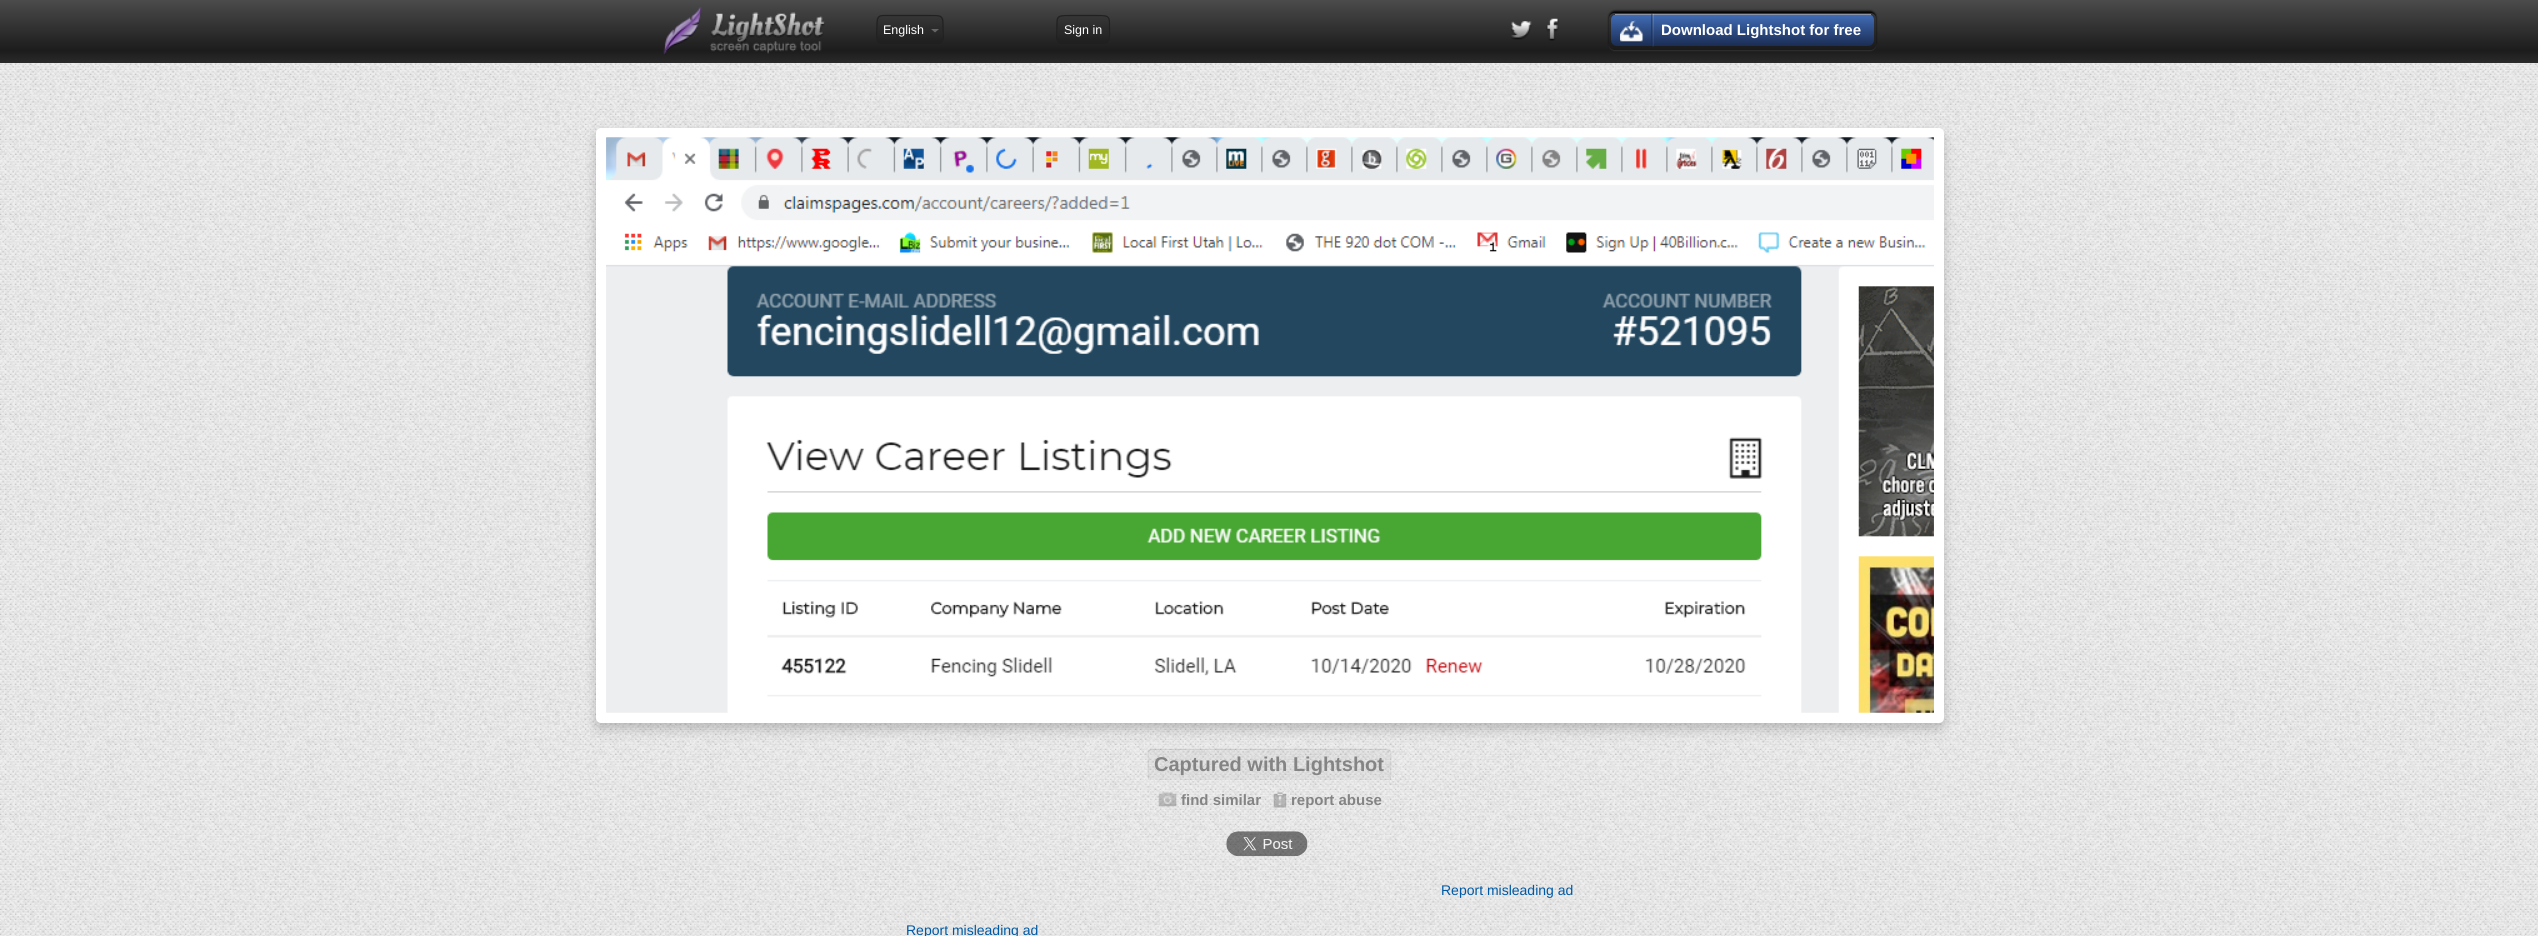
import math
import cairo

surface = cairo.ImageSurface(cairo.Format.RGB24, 2538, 936)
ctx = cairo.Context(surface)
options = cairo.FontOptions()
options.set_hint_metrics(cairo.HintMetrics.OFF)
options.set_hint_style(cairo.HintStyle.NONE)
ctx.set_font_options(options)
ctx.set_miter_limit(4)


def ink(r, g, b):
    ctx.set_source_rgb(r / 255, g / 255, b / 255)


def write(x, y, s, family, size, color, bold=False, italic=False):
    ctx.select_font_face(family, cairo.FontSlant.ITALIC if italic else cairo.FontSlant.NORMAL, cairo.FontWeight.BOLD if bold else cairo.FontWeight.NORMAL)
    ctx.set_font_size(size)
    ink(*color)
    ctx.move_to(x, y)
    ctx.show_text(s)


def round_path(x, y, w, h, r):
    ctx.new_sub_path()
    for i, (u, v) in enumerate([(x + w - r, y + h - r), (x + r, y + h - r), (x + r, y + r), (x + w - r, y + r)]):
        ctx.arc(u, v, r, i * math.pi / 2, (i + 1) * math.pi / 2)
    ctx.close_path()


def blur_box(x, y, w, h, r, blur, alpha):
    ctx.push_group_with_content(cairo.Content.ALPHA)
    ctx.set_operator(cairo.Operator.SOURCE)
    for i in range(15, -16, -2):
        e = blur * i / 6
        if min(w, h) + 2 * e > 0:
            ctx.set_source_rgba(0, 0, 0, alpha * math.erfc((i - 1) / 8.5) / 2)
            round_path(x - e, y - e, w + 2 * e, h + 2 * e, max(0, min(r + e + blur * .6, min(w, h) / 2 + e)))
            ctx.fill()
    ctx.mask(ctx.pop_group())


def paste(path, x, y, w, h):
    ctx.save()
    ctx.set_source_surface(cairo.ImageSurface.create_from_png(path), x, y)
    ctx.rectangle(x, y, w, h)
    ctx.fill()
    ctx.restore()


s1 = dict(family="Liberation Sans", size=12.5, color=(255, 255, 255))
s2 = dict(family="Liberation Sans", size=15, color=(255, 255, 255), bold=True)
s3 = dict(family="Liberation Sans", size=20, color=(132, 132, 132), bold=True)
s4 = dict(family="Liberation Sans", size=15, color=(132, 132, 132), bold=True)
s5 = dict(family="Liberation Sans", size=14, color=(0, 89, 165))

ink(255, 255, 255)
ctx.paint()
paste("pic1.png", 0, 63, 2538, 873)
gradient = cairo.LinearGradient(1269, 0, 1269, 63)
gradient.add_color_stop_rgba(0, 0.294, 0.294, 0.294, 1)
gradient.add_color_stop_rgba(0.8, 0.11, 0.11, 0.11, 1)
gradient.add_color_stop_rgba(1, 0.165, 0.165, 0.165, 1)
ctx.set_source(gradient)
ctx.rectangle(0, 0, 2538, 63)
ctx.fill()
paste("pic2.png", 663, 7, 162, 48)
ctx.set_source_rgba(0, 0, 0, 0.1)
round_path(876, 15, 68, 29, 6)
ctx.fill()
ctx.new_path()
ctx.move_to(878.5, 41.5)
ctx.curve_to(875.5, 38.5, 877, 30.5, 877, 26.5)
ctx.curve_to(877, 14, 879, 15.5, 891.5, 15.5)
ctx.line_to(928.5, 15.5)
ctx.curve_to(943, 15.5, 943, 15, 943, 29.5)
ctx.curve_to(943, 33, 944.5, 38.5, 941.5, 41.5)
ink(33, 33, 33)
ctx.set_line_width(1.2)
ctx.stroke()
write(883, 34, "English", **s1)
ink(102, 102, 102)
ctx.new_path()
ctx.move_to(931, 29)
ctx.line_to(939, 29)
ctx.line_to(935, 32.5)
ctx.close_path()
ctx.fill()
ctx.set_source_rgba(0, 0, 0, 0.1)
round_path(1056, 15, 54, 29, 6)
ctx.fill()
ctx.new_path()
ctx.move_to(1058.5, 41.5)
ctx.curve_to(1055.5, 38.5, 1057, 33, 1057, 29.5)
ctx.curve_to(1057, 16.5, 1056, 15.5, 1069.5, 15.5)
ctx.line_to(1097, 15.5)
ctx.curve_to(1110.5, 15.5, 1109.5, 16.5, 1109.5, 29.5)
ctx.curve_to(1109.5, 33, 1110.5, 38.5, 1107.5, 41.5)
ink(33, 33, 33)
ctx.stroke()
write(1064, 34, "Sign in", **s1)
paste("pic3.png", 1511, 21, 21, 19)
paste("pic4.png", 1546, 18, 13, 23)
ctx.save()
ctx.set_fill_rule(cairo.FillRule.EVEN_ODD)
ctx.new_path()
ctx.move_to(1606, 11)
ctx.line_to(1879, 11)
ctx.line_to(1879, 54)
ctx.line_to(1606, 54)
ctx.close_path()
ctx.move_to(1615, 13)
ctx.line_to(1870, 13)
ctx.curve_to(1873.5, 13, 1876, 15.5, 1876, 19)
ctx.line_to(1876, 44)
ctx.curve_to(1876, 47.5, 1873.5, 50, 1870, 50)
ctx.line_to(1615, 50)
ctx.curve_to(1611.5, 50, 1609, 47.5, 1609, 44)
ctx.line_to(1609, 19)
ctx.curve_to(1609, 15.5, 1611.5, 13, 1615, 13)
ctx.close_path()
ctx.clip()
ink(255, 255, 255)
blur_box(1609, 14, 267, 37, 6, 0.5, 0.1)
ctx.restore()
ctx.save()
ctx.set_fill_rule(cairo.FillRule.EVEN_ODD)
ctx.new_path()
ctx.move_to(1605, 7)
ctx.line_to(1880, 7)
ctx.line_to(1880, 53)
ctx.line_to(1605, 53)
ctx.close_path()
ctx.move_to(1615, 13)
ctx.line_to(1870, 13)
ctx.curve_to(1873.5, 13, 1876, 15.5, 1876, 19)
ctx.line_to(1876, 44)
ctx.curve_to(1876, 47.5, 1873.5, 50, 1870, 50)
ctx.line_to(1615, 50)
ctx.curve_to(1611.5, 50, 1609, 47.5, 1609, 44)
ctx.line_to(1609, 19)
ctx.curve_to(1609, 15.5, 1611.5, 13, 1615, 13)
ctx.close_path()
ctx.clip()
ink(0, 0, 0)
blur_box(1609, 11, 267, 38, 6, 1, 0.99)
ctx.restore()
ctx.set_source_rgba(0, 0, 0, 0.11)
round_path(1609, 13, 267, 37, 6)
ctx.fill()
ctx.save()
round_path(1611, 14, 263, 32, 6)
ctx.clip()
gradient = cairo.LinearGradient(1743, -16, 1743, 15)
gradient.add_color_stop_rgba(0, 0.251, 0.424, 0.714, 1)
gradient.add_color_stop_rgba(1, 0.106, 0.176, 0.329, 1)
ctx.set_source(gradient)
ctx.rectangle(1611, 14, 263, 1)
ctx.fill()
gradient = cairo.LinearGradient(1743, 15, 1743, 46)
gradient.add_color_stop_rgba(0, 0.251, 0.427, 0.722, 0.98)
gradient.add_color_stop_rgba(1, 0.102, 0.176, 0.329, 0.98)
ctx.set_source(gradient)
ctx.new_path()
ctx.move_to(1611, 15)
ctx.line_to(1874, 15)
ctx.line_to(1874, 40)
ctx.curve_to(1874, 43.5, 1871.5, 46, 1868, 46)
ctx.line_to(1617, 46)
ctx.curve_to(1613.5, 46, 1611, 43.5, 1611, 40)
ctx.close_path()
ctx.fill()
ctx.restore()
ctx.set_source_rgba(0.984, 0.984, 0.984, 0.5)
ctx.rectangle(1615, 14, 256, 1)
ctx.fill()
paste("pic5.png", 1620, 20, 24, 23)
paste("pic6.png", 1651, 13, 3, 34)
write(1661, 35, "Download Lightshot for free", **s2)
ink(0, 0, 0)
blur_box(596, 134, 1348, 595, 5, 6, 0.2)
ink(255, 255, 255)
round_path(596, 128, 1348, 595, 5)
ctx.fill()
paste("pic7.png", 606, 137, 1328, 576)
paste("pic8.png", 606, 137, 1328, 576)
ctx.save()
ctx.set_fill_rule(cairo.FillRule.EVEN_ODD)
ctx.new_path()
ctx.move_to(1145, 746)
ctx.line_to(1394, 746)
ctx.line_to(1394, 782)
ctx.line_to(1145, 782)
ctx.close_path()
ctx.move_to(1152, 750)
ctx.line_to(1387, 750)
ctx.curve_to(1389, 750, 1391, 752, 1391, 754)
ctx.line_to(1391, 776)
ctx.curve_to(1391, 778, 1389, 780, 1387, 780)
ctx.line_to(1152, 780)
ctx.curve_to(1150, 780, 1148, 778, 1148, 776)
ctx.line_to(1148, 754)
ctx.curve_to(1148, 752, 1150, 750, 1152, 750)
ctx.close_path()
ctx.clip()
ink(0, 0, 0)
blur_box(1148, 749, 243, 30, 4, 0.5, 0.12)
ctx.restore()
ctx.set_source_rgba(0, 0, 0, 0.04)
ctx.rectangle(1148, 750, 243, 30)
ctx.fill()
ctx.rectangle(1390, 753, 1, 26)
ctx.fill()
ctx.rectangle(1148, 753, 1, 26)
ctx.fill()
write(1154, 771, "Captured with Lightshot", **s3)
paste("pic9.png", 1158, 792, 19, 15)
write(1181, 805, "find similar", **s4)
paste("pic10.png", 1273, 792, 14, 16)
write(1291, 805, "report abuse", **s4)
paste("pic11.png", 1226, 831, 82, 26)
write(1441, 895, "Report misleading ad", **s5)
write(906, 935, "Report misleading ad", **s5)
surface.write_to_png("screenshot.png")
